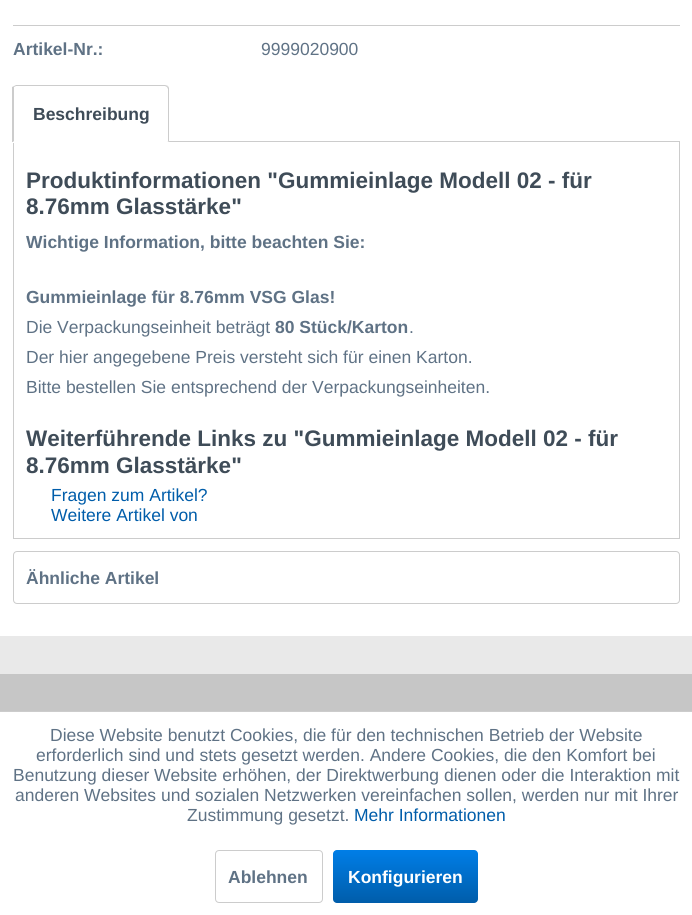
import math
import cairo

surface = cairo.ImageSurface(cairo.Format.RGB24, 692, 915)
ctx = cairo.Context(surface)
options = cairo.FontOptions()
options.set_hint_metrics(cairo.HintMetrics.OFF)
options.set_hint_style(cairo.HintStyle.NONE)
ctx.set_font_options(options)
ctx.set_miter_limit(4)


def ink(r, g, b):
    ctx.set_source_rgb(r / 255, g / 255, b / 255)


def write(x, y, s, family, size, color, bold=False, italic=False):
    ctx.select_font_face(family, cairo.FontSlant.ITALIC if italic else cairo.FontSlant.NORMAL, cairo.FontWeight.BOLD if bold else cairo.FontWeight.NORMAL)
    ctx.set_font_size(size)
    ink(*color)
    ctx.move_to(x, y)
    ctx.show_text(s)


def block(x, y, w, h, *color):
    ink(*color)
    ctx.rectangle(x, y, w, h)
    ctx.fill()


def round_path(x, y, w, h, r):
    ctx.new_sub_path()
    for i, (u, v) in enumerate([(x + w - r, y + h - r), (x + r, y + h - r), (x + r, y + r), (x + w - r, y + r)]):
        ctx.arc(u, v, r, i * math.pi / 2, (i + 1) * math.pi / 2)
    ctx.close_path()


s1 = dict(family="Liberation Sans", size=17.5, color=(95, 114, 133), bold=True)
s2 = dict(family="Liberation Sans", size=17.5, color=(95, 114, 133))
s3 = dict(family="Liberation Sans", size=17.5, color=(63, 76, 88), bold=True)
s4 = dict(family="Liberation Sans", size=22.5, color=(63, 76, 88), bold=True)
s5 = dict(family="Liberation Sans", size=17.5, color=(0, 93, 170))
s6 = dict(family="Liberation Sans", size=17.5, color=(255, 255, 255), bold=True)

ink(233, 233, 233)
ctx.paint()
block(0, 0, 692, 636, 255, 255, 255)
block(13, 25, 667, 1, 204, 204, 204)
write(13, 55, "Artikel-Nr.:", **s1)
write(261, 55, "9999020900", **s2)
ctx.rectangle(13.5, 141.5, 666, 397)
ink(204, 204, 204)
ctx.set_line_width(1)
ctx.stroke()
ink(255, 255, 255)
ctx.new_path()
ctx.move_to(17, 85)
ctx.line_to(165, 85)
ctx.curve_to(167, 85, 169, 87, 169, 89)
ctx.line_to(169, 143)
ctx.line_to(13, 143)
ctx.line_to(13, 89)
ctx.curve_to(13, 87, 15, 85, 17, 85)
ctx.close_path()
ctx.fill()
ink(204, 204, 204)
ctx.new_path()
ctx.move_to(16, 85)
ctx.line_to(14, 86)
ctx.line_to(14, 87)
ctx.line_to(16, 86)
ctx.line_to(165, 86)
ctx.line_to(167, 87)
ctx.line_to(168, 86)
ctx.line_to(165, 85)
ctx.close_path()
ctx.fill()
ctx.new_path()
ctx.move_to(169, 142)
ctx.line_to(167, 141)
ctx.line_to(168, 141)
ctx.line_to(168, 89)
ctx.line_to(167, 87)
ctx.line_to(168, 86)
ctx.line_to(169, 88)
ctx.close_path()
ctx.fill()
ink(255, 255, 255)
ctx.new_path()
ctx.move_to(168, 142)
ctx.line_to(13, 142)
ctx.line_to(14, 141)
ctx.line_to(167, 141)
ctx.close_path()
ctx.fill()
ink(204, 204, 204)
ctx.new_path()
ctx.move_to(12, 87)
ctx.line_to(14, 86)
ctx.line_to(14, 87)
ctx.line_to(14, 89)
ctx.line_to(14, 141)
ctx.line_to(13, 142)
ctx.line_to(12, 142)
ctx.close_path()
ctx.fill()
write(33, 120, "Beschreibung", **s3)
write(26, 188, "Produktinformationen \"Gummieinlage Modell 02 - für", **s4)
write(26, 214, "8.76mm Glasstärke\"", **s4)
write(26, 248, "Wichtige Information, bitte beachten Sie:", **s1)
write(26, 303, "Gummieinlage für 8.76mm VSG Glas!", **s1)
write(26, 333, "Die Verpackungseinheit beträgt", **s2)
write(275, 333, "80 Stück/Karton", **s1)
write(409, 333, ".", **s2)
write(26, 363, "Der hier angegebene Preis versteht sich für einen Karton.", **s2)
write(26, 393, "Bitte bestellen Sie entsprechend der Verpackungseinheiten.", **s2)
write(26, 446, "Weiterführende Links zu \"Gummieinlage Modell 02 - für", **s4)
write(26, 473, "8.76mm Glasstärke\"", **s4)
write(51, 501, "Fragen zum Artikel?", **s5)
write(51, 521, "Weitere Artikel von", **s5)
round_path(13.5, 551.5, 666, 52, 3.5)
ink(204, 204, 204)
ctx.stroke()
write(26, 584, "Ähnliche Artikel", **s1)
block(0, 674, 692, 37, 198, 198, 198)
block(0, 712, 692, 203, 255, 255, 255)
block(0, 711, 692, 1, 204, 204, 204)
write(50, 741, "Diese Website benutzt Cookies, die für den technischen Betrieb der Website", **s2)
write(36, 761, "erforderlich sind und stets gesetzt werden. Andere Cookies, die den Komfort bei", **s2)
write(13, 781, "Benutzung dieser Website erhöhen, der Direktwerbung dienen oder die Interaktion mit", **s2)
write(15, 801, "anderen Websites und sozialen Netzwerken vereinfachen sollen, werden nur mit Ihrer", **s2)
write(187, 821, "Zustimmung gesetzt.", **s2)
write(354, 821, "Mehr Informationen", **s5)
round_path(215.5, 850.5, 107, 52, 3.5)
ink(204, 204, 204)
ctx.stroke()
write(228, 883, "Ablehnen", **s1)
gradient = cairo.LinearGradient(405, 850, 405, 903)
gradient.add_color_stop_rgba(0, 0, 0.494, 0.906, 1)
gradient.add_color_stop_rgba(1, 0, 0.365, 0.667, 1)
ctx.set_source(gradient)
round_path(333, 850, 145, 53, 4)
ctx.fill()
write(348, 883, "Konfigurieren", **s6)
surface.write_to_png("screenshot.png")
